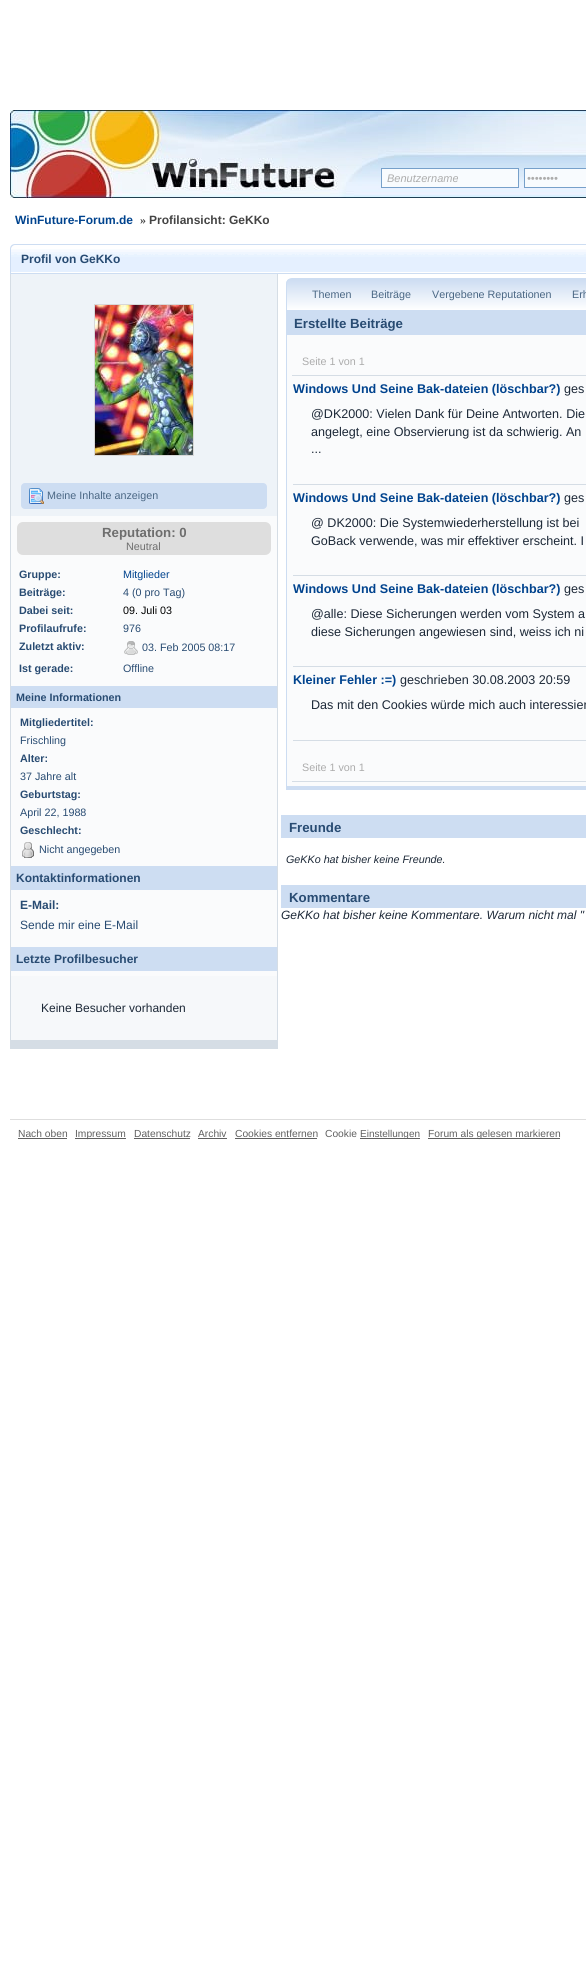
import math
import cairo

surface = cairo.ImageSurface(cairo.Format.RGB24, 586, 1962)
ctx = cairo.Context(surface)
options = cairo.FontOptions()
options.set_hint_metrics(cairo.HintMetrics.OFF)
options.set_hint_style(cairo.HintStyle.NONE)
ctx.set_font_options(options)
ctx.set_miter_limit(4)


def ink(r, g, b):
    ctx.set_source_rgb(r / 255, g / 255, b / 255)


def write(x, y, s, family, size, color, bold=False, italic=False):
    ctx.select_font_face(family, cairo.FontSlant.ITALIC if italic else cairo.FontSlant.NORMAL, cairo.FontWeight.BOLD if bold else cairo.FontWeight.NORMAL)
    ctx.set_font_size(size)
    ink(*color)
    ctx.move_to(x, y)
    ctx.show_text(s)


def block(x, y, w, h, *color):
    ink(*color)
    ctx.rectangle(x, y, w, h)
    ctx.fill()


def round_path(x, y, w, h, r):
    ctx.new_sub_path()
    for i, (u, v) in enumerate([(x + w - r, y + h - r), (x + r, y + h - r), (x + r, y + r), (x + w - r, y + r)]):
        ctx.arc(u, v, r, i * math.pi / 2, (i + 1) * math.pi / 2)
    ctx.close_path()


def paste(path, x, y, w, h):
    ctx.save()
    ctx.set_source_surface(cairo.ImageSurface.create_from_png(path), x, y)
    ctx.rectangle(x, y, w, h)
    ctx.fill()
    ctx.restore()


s1 = dict(family="Liberation Sans", size=11, color=(172, 172, 172), italic=True)
s2 = dict(family="Liberation Sans", size=12, color=(0, 67, 142), bold=True)
s3 = dict(family="Liberation Serif", size=12, color=(68, 68, 68), bold=True)
s4 = dict(family="Liberation Sans", size=12, color=(68, 68, 68), bold=True)
s5 = dict(family="Liberation Sans", size=12, color=(40, 75, 114), bold=True)
s6 = dict(family="Liberation Sans", size=10.75, color=(74, 103, 132))
s7 = dict(family="Liberation Sans", size=13.25, color=(110, 110, 110), bold=True)
s8 = dict(family="Liberation Sans", size=10.75, color=(110, 110, 110))
s9 = dict(family="Liberation Sans", size=10.75, color=(40, 75, 114), bold=True)
s10 = dict(family="Liberation Sans", size=10.75, color=(0, 67, 142))
s11 = dict(family="Liberation Sans", size=10.75, color=(40, 75, 114))
s12 = dict(family="Liberation Sans", size=10.75, color=(0, 0, 0))
s13 = dict(family="Liberation Sans", size=12, color=(40, 75, 114))
s14 = dict(family="Liberation Sans", size=12, color=(28, 40, 55))
s15 = dict(family="Liberation Sans", size=13.25, color=(40, 75, 114), bold=True)
s16 = dict(family="Liberation Sans", size=10.75, color=(172, 172, 172))
s17 = dict(family="Liberation Sans", size=12.6, color=(0, 67, 142), bold=True)
s18 = dict(family="Liberation Sans", size=12.6, color=(28, 40, 55))
s19 = dict(family="Liberation Sans", size=10.75, color=(28, 40, 55), italic=True)
s20 = dict(family="Liberation Sans", size=12, color=(28, 40, 55), italic=True)
s21 = dict(family="Liberation Sans", size=10.25, color=(96, 96, 96))
s22 = dict(family="Liberation Sans", size=10, color=(96, 96, 96))

ink(255, 255, 255)
ctx.paint()
paste("pic1.png", 10, 110, 576, 88)
ink(248, 251, 254)
ctx.rectangle(381.5, 168.5, 137, 19)
ctx.fill_preserve()
ink(119, 160, 202)
ctx.set_line_width(1)
ctx.stroke()
write(387, 182, "Benutzername", **s1)
ink(248, 251, 254)
ctx.rectangle(524.5, 168.5, 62, 19)
ctx.fill_preserve()
ink(119, 160, 202)
ctx.stroke()
write(527, 182, "••••••••", **s1)
write(15, 224, "WinFuture-Forum.de", **s2)
write(140, 224, "»", **s3)
write(149, 224, "Profilansicht: GeKKo", **s4)
ctx.rectangle(10.5, 273.5, 267, 775)
ink(213, 221, 229)
ctx.stroke()
ink(255, 255, 255)
ctx.new_path()
ctx.move_to(15, 244)
ctx.line_to(586, 244)
ctx.curve_to(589, 244, 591, 246, 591, 249)
ctx.line_to(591, 274)
ctx.line_to(10, 274)
ctx.line_to(10, 249)
ctx.curve_to(10, 246, 12, 244, 15, 244)
ctx.close_path()
ctx.fill()
paste("pic2.png", 11, 249, 575, 25)
ink(205, 221, 242)
ctx.set_fill_rule(cairo.FillRule.EVEN_ODD)
ctx.new_path()
ctx.move_to(15, 244)
ctx.line_to(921, 244)
ctx.curve_to(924, 244, 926, 246, 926, 249)
ctx.line_to(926, 274)
ctx.line_to(10, 274)
ctx.line_to(10, 249)
ctx.curve_to(10, 246, 12, 244, 15, 244)
ctx.close_path()
ctx.move_to(15, 245)
ctx.line_to(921, 245)
ctx.curve_to(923, 245, 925, 247, 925, 249)
ctx.line_to(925, 274)
ctx.line_to(11, 274)
ctx.line_to(11, 249)
ctx.curve_to(11, 247, 13, 245, 15, 245)
ctx.close_path()
ctx.fill()
write(21, 263, "Profil von GeKKo", **s5)
block(11, 516, 266, 460, 250, 251, 252)
block(11, 1040, 266, 8, 213, 221, 229)
block(11, 274, 266, 242, 238, 243, 248)
ctx.rectangle(94.5, 304.5, 99, 151)
ink(216, 216, 216)
ctx.stroke()
paste("pic3.png", 95, 305, 98, 150)
ink(205, 221, 242)
round_path(21, 483, 246, 26, 4)
ctx.fill()
paste("pic4.png", 29, 488, 15, 16)
write(47, 499, "Meine Inhalte anzeigen", **s6)
ink(222, 222, 222)
round_path(17, 522, 254, 33, 6)
ctx.fill()
write(102, 537, "Reputation: 0", **s7)
write(126, 550, "Neutral", **s8)
write(19, 578, "Gruppe:", **s9)
write(123, 578, "Mitglieder", **s10)
write(19, 596, "Beiträge:", **s9)
write(123, 596, "4 (0 pro Tag)", **s11)
write(19, 614, "Dabei seit:", **s9)
write(123, 614, "09. Juli 03", **s12)
write(19, 632, "Profilaufrufe:", **s9)
write(123, 632, "976", **s11)
write(19, 650, "Zuletzt aktiv:", **s9)
paste("pic5.png", 124, 641, 14, 14)
write(142, 651, "03. Feb 2005 08:17", **s11)
write(19, 672, "Ist gerade:", **s9)
write(123, 672, "Offline", **s11)
block(11, 686, 266, 22, 205, 221, 242)
write(16, 701, "Meine Informationen", **s9)
write(20, 726, "Mitgliedertitel:", **s9)
write(20, 744, "Frischling", **s11)
write(20, 762, "Alter:", **s9)
write(20, 780, "37 Jahre alt", **s11)
write(20, 798, "Geburtstag:", **s9)
write(20, 816, "April 22, 1988", **s11)
write(20, 834, "Geschlecht:", **s9)
paste("pic6.png", 22, 842, 12, 16)
write(39, 853, "Nicht angegeben", **s11)
block(11, 866, 266, 24, 205, 221, 242)
write(16, 882, "Kontaktinformationen", **s5)
write(20, 909, "E-Mail:", **s5)
write(20, 929, "Sende mir eine E-Mail", **s13)
block(11, 947, 266, 24, 205, 221, 242)
write(16, 963, "Letzte Profilbesucher", **s5)
block(11, 976, 266, 64, 246, 248, 250)
write(41, 1012, "Keine Besucher vorhanden", **s14)
paste("pic7.png", 286, 279, 300, 32)
ctx.new_path()
ctx.move_to(292, 278.5)
ctx.line_to(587, 278.5)
ctx.curve_to(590, 278.5, 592.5, 281, 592.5, 284)
ctx.line_to(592.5, 318.5)
ctx.line_to(286.5, 318.5)
ctx.line_to(286.5, 284)
ctx.curve_to(286.5, 281, 289, 278.5, 292, 278.5)
ctx.close_path()
ink(205, 221, 242)
ctx.stroke()
write(312, 298, "Themen", **s6)
write(371, 298, "Beiträge", **s6)
write(432, 298, "Vergebene Reputationen", **s6)
write(572, 298, "Erh", **s6)
block(287, 335, 299, 451, 250, 251, 252)
block(286, 311, 300, 24, 205, 221, 242)
write(294, 328, "Erstellte Beiträge", **s15)
block(286, 786, 300, 4, 205, 221, 242)
block(286, 334, 1, 456, 205, 221, 242)
block(292, 375, 294, 1, 213, 221, 229)
write(302, 365, "Seite 1 von 1", **s16)
write(293, 393, "Windows Und Seine Bak-dateien (löschbar?)", **s17)
write(564, 393, "ges", **s18)
block(293, 484, 293, 1, 213, 221, 229)
write(311, 418, "@DK2000: Vielen Dank für Deine Antworten. Die", **s18)
write(311, 436, "angelegt, eine Observierung ist da schwierig. An", **s18)
write(311, 453, "...", **s18)
write(293, 502, "Windows Und Seine Bak-dateien (löschbar?)", **s17)
write(564, 502, "ges", **s18)
block(293, 575, 293, 1, 213, 221, 229)
write(311, 527, "@ DK2000: Die Systemwiederherstellung ist bei", **s18)
write(311, 545, "GoBack verwende, was mir effektiver erscheint. I", **s18)
write(293, 593, "Windows Und Seine Bak-dateien (löschbar?)", **s17)
write(564, 593, "ges", **s18)
block(293, 666, 293, 1, 213, 221, 229)
write(311, 618, "@alle: Diese Sicherungen werden vom System a", **s18)
write(311, 636, "diese Sicherungen angewiesen sind, weiss ich ni", **s18)
write(293, 684, "Kleiner Fehler :=)", **s17)
write(400, 684, "geschrieben 30.08.2003 20:59", **s18)
block(293, 740, 293, 1, 213, 221, 229)
write(311, 709, "Das mit den Cookies würde mich auch interessier", **s18)
block(292, 781, 294, 1, 213, 221, 229)
write(302, 771, "Seite 1 von 1", **s16)
block(281, 815, 305, 23, 205, 221, 242)
write(289, 832, "Freunde", **s15)
write(286, 863, "GeKKo hat bisher keine Freunde.", **s19)
block(281, 885, 305, 23, 205, 221, 242)
write(289, 902, "Kommentare", **s15)
write(281, 919, "GeKKo hat bisher keine Kommentare. Warum nicht mal \"", **s20)
block(10, 1119, 576, 1, 222, 222, 222)
write(18, 1137, "Nach oben", **s21)
block(18, 1138, 49, 1, 96, 96, 96)
block(75, 1138, 51, 1, 96, 96, 96)
write(75, 1137, "Impressum", **s21)
write(134, 1137, "Datenschutz", **s21)
block(134, 1138, 56, 1, 96, 96, 96)
write(198, 1137, "Archiv", **s21)
block(198, 1138, 29, 1, 96, 96, 96)
write(235, 1137, "Cookies entfernen", **s21)
block(235, 1138, 82, 1, 96, 96, 96)
write(325, 1137, "Cookie", **s21)
block(360, 1138, 60, 1, 96, 96, 96)
write(360, 1137, "Einstellungen", **s22)
block(428, 1138, 132, 1, 96, 96, 96)
write(428, 1137, "Forum als gelesen markieren", **s21)
surface.write_to_png("screenshot.png")
